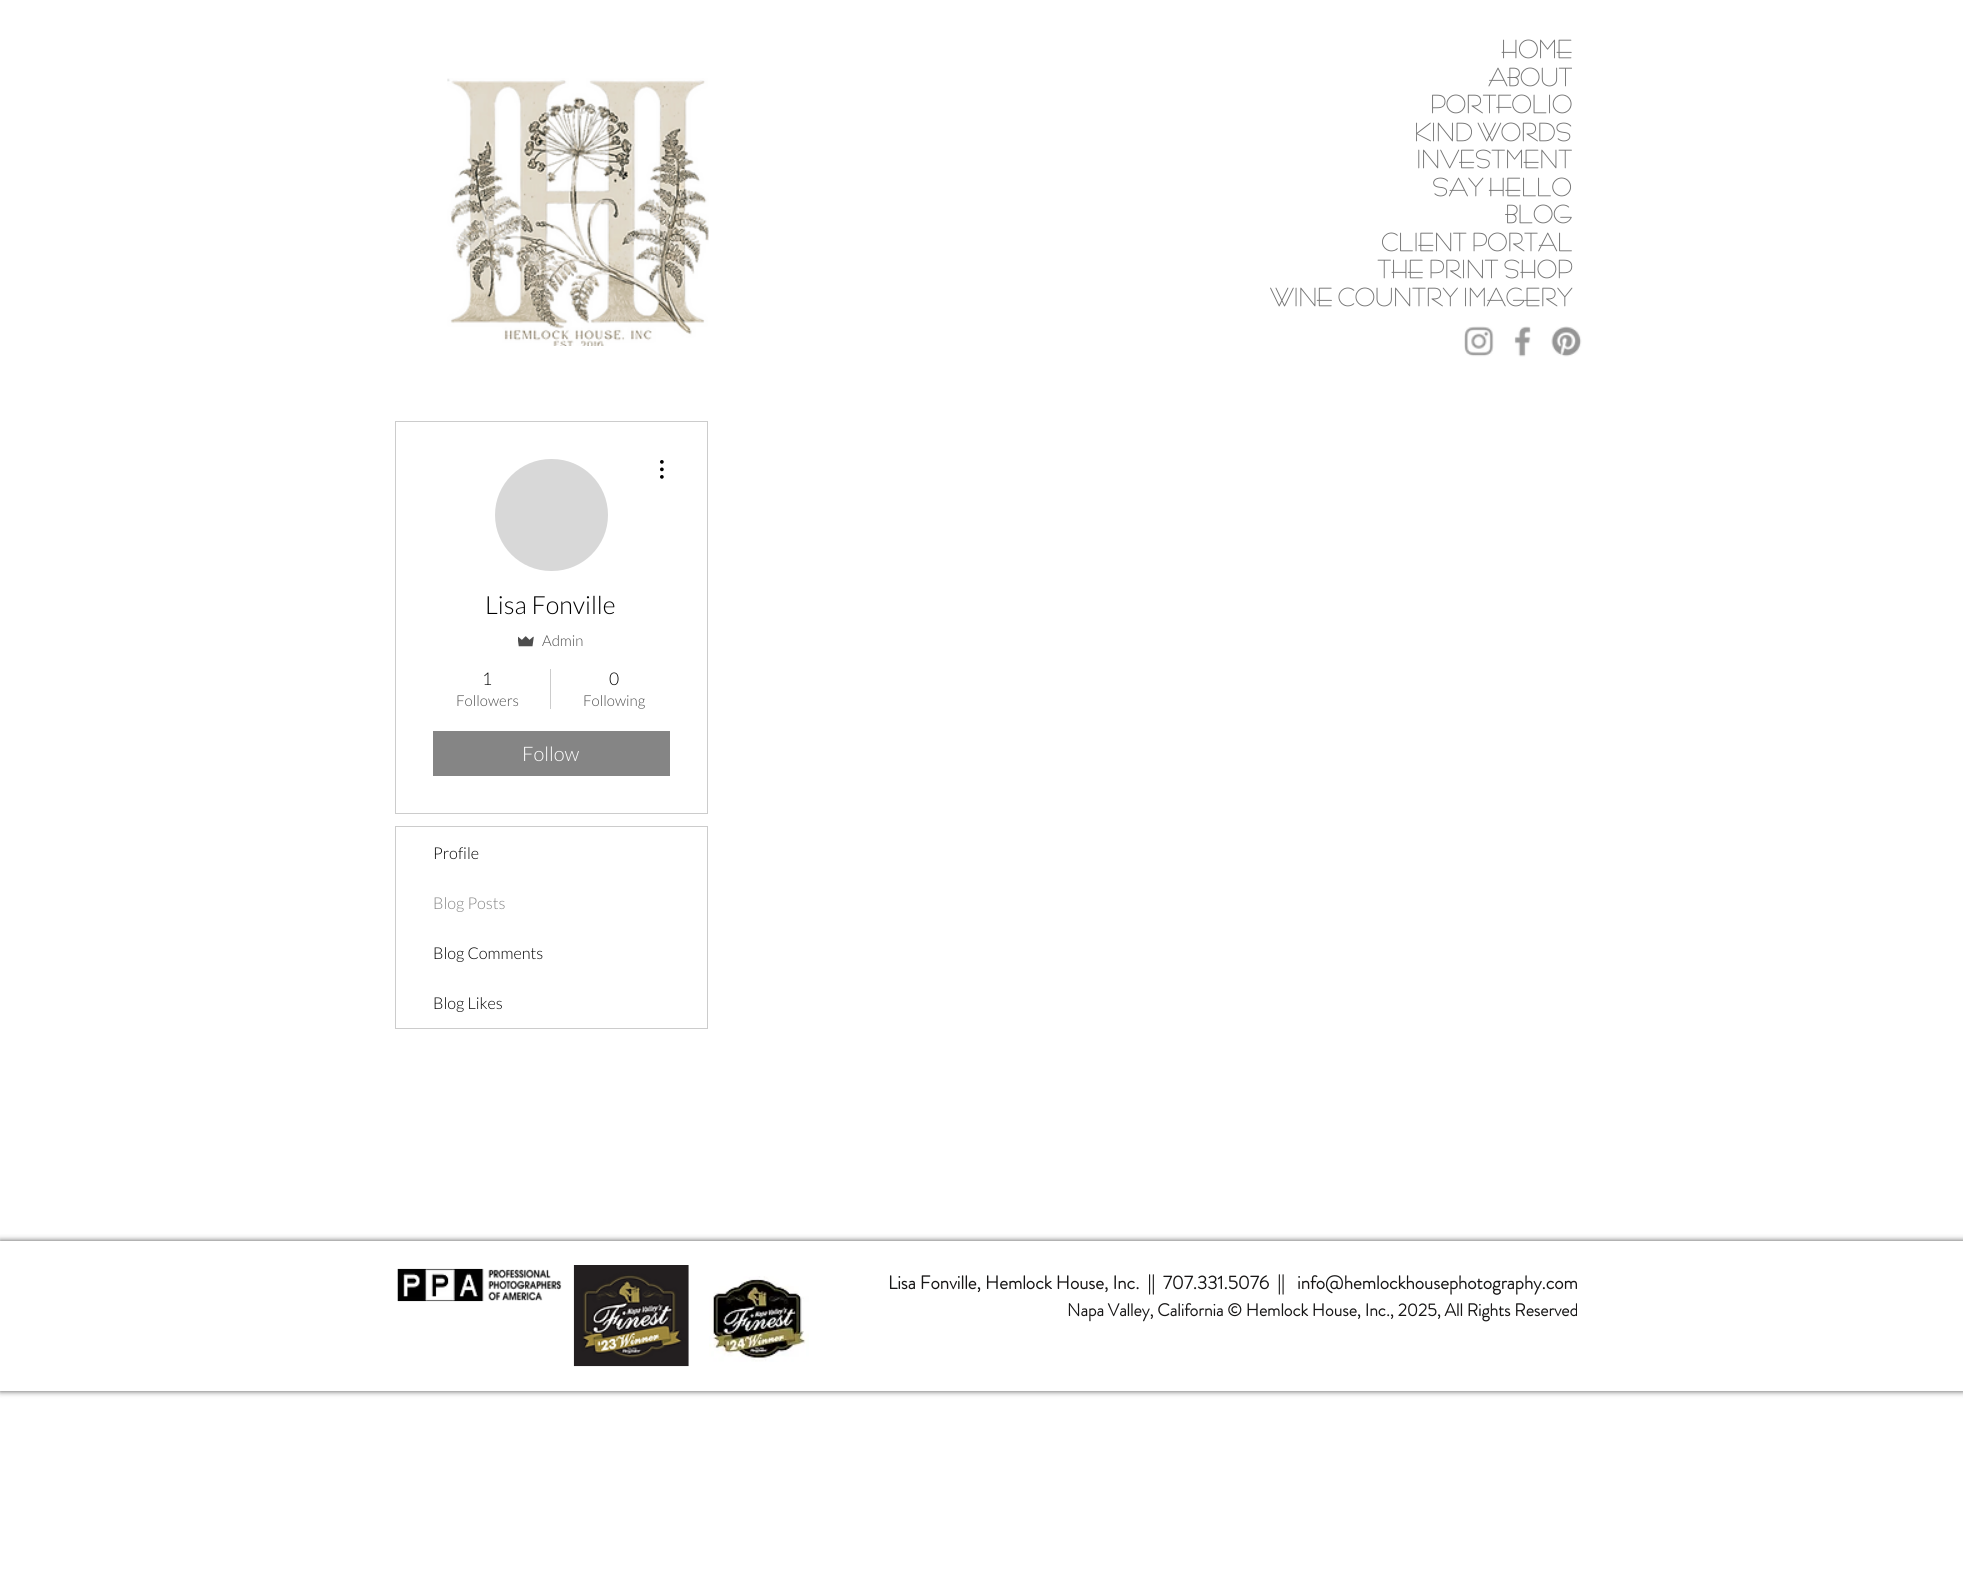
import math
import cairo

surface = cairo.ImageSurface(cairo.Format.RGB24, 1963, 1586)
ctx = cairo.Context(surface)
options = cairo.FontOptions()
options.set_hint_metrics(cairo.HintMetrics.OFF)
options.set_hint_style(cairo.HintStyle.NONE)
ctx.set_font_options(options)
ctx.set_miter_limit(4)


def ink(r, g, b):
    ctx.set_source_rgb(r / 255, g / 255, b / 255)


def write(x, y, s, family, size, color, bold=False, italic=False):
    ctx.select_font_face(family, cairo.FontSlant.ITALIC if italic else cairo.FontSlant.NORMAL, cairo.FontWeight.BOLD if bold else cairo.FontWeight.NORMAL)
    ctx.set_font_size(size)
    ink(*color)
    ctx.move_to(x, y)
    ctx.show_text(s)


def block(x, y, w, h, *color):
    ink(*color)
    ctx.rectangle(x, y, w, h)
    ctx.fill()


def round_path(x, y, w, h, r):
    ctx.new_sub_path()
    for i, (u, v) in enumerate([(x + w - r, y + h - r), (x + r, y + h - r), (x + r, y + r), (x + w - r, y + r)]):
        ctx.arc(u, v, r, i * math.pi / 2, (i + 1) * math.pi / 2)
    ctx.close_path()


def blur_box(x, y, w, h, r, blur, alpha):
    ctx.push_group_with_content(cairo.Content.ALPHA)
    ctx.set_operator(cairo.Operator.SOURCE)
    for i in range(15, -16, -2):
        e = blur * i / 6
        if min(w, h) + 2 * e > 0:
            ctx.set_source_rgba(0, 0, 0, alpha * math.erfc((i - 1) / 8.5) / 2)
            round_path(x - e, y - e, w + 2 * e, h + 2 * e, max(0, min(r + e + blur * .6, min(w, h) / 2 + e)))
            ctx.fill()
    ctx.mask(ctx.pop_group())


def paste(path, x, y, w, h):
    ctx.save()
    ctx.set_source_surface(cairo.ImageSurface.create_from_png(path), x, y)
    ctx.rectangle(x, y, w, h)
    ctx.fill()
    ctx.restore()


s1 = dict(family="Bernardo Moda", size=20, color=(117, 117, 117), bold=True)
s2 = dict(family="Lato Light", size=25, color=(0, 0, 0))
s3 = dict(family="Lato Light", size=15, color=(77, 77, 77))
s4 = dict(family="Lato Light", size=17.5, color=(0, 0, 0))
s5 = dict(family="Lato Light", size=20, color=(255, 255, 255))
s6 = dict(family="Lato Light", size=16.25, color=(0, 0, 0))
s7 = dict(family="Lato Light", size=16.25, color=(133, 133, 133))
s8 = dict(family="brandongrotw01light", size=18.75, color=(23, 22, 22), bold=True)
s9 = dict(family="brandongrotw01light", size=17.5, color=(23, 22, 22), bold=True)

ink(255, 255, 255)
ctx.paint()
paste("pic1.png", 447, 78, 262, 268)
write(1501, 56, "HOME", **s1)
write(1488, 84, "ABOUT", **s1)
write(1430, 111, "PORTFOLIO", **s1)
write(1414, 139, "KIND WORDS", **s1)
write(1416, 166, "INVESTMENT", **s1)
write(1432, 194, "SAY HELLO", **s1)
write(1505, 221, "BLOG", **s1)
write(1381, 249, "CLIENT PORTAL", **s1)
write(1377, 276, "THE PRINT SHOP", **s1)
write(1270, 304, "WINE COUNTRY IMAGERY", **s1)
paste("pic2.png", 1464, 326, 30, 31)
paste("pic3.png", 1514, 326, 17, 31)
paste("pic4.png", 1551, 326, 31, 31)
ctx.rectangle(395.5, 421.5, 312, 392)
ink(204, 204, 204)
ctx.set_line_width(1)
ctx.stroke()
ink(216, 216, 216)
round_path(495, 459, 113, 112, 56)
ctx.fill()
paste("pic5.png", 660, 460, 4, 19)
write(485, 614, "Lisa Fonville", **s2)
paste("pic6.png", 518, 636, 16, 11)
write(542, 646, "Admin", **s3)
write(482, 685, "1", **s4)
write(456, 706, "Followers", **s3)
block(550, 669, 1, 40, 204, 204, 204)
write(609, 685, "0", **s4)
write(583, 706, "Following", **s3)
block(433, 731, 237, 45, 133, 133, 133)
write(522, 761, "Follow", **s5)
ctx.rectangle(395.5, 826.5, 312, 202)
ink(204, 204, 204)
ctx.stroke()
write(433, 859, "Profile", **s6)
write(433, 909, "Blog Posts", **s7)
write(433, 959, "Blog Comments", **s6)
write(433, 1009, "Blog Likes", **s6)
ctx.save()
ctx.set_fill_rule(cairo.FillRule.EVEN_ODD)
ctx.new_path()
ctx.move_to(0, 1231)
ctx.line_to(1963, 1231)
ctx.line_to(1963, 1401)
ctx.line_to(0, 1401)
ctx.close_path()
ctx.move_to(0, 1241)
ctx.line_to(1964, 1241)
ctx.line_to(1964, 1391)
ctx.line_to(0, 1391)
ctx.close_path()
ctx.clip()
ink(0, 0, 0)
blur_box(0, 1241, 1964, 150, 0, 3, 0.7)
ctx.restore()
ctx.set_source_rgba(1, 1, 1, 0.6)
ctx.rectangle(0, 1241, 1963, 1)
ctx.fill()
paste("pic7.png", 573, 1265, 116, 102)
paste("pic8.png", 709, 1276, 100, 86)
paste("pic9.png", 397, 1268, 165, 34)
write(888, 1289, "Lisa Fonville, Hemlock House, Inc.  ||  707.331.5076  ||", **s8)
write(1297, 1289, "info@hemlockhousephotography.com", **s8)
write(1067, 1316, "Napa Valley, California © Hemlock House, Inc., 2025, All Rights Reserved", **s9)
surface.write_to_png("screenshot.png")
